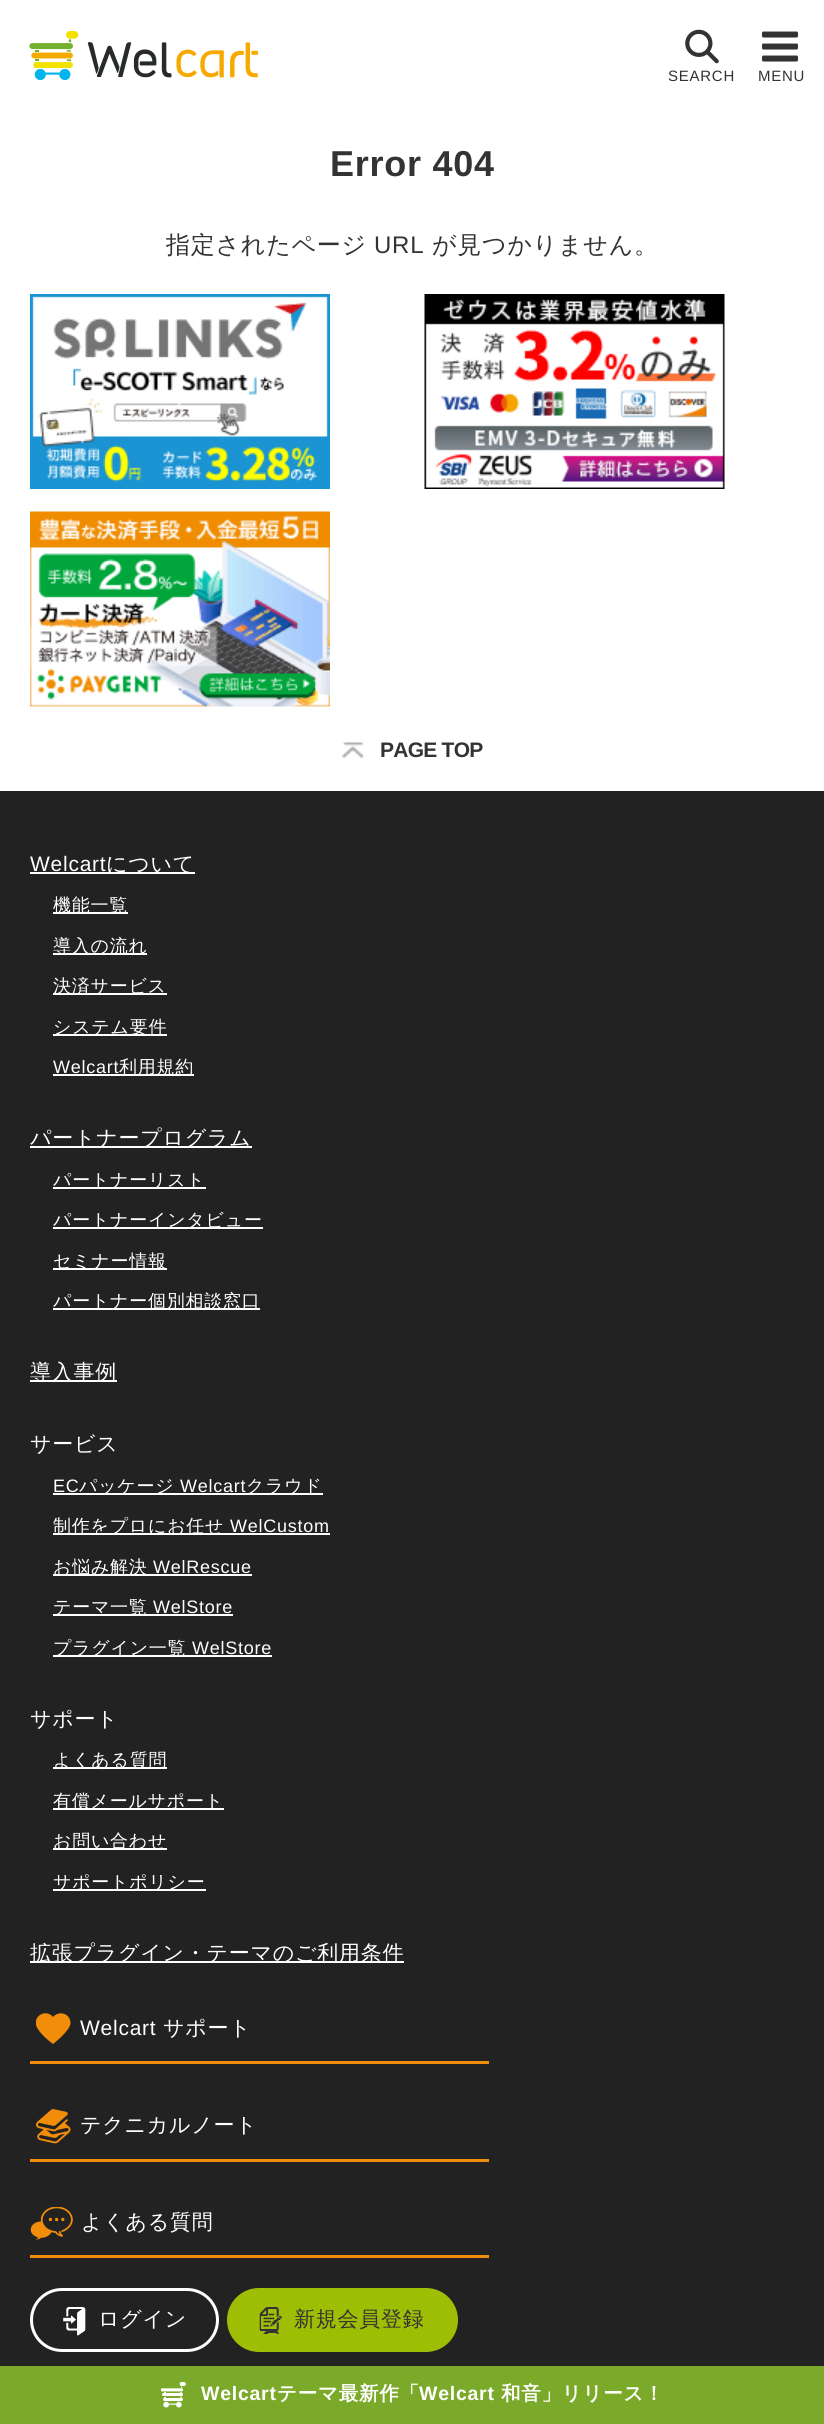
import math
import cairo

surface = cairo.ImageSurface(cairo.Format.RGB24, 824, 2424)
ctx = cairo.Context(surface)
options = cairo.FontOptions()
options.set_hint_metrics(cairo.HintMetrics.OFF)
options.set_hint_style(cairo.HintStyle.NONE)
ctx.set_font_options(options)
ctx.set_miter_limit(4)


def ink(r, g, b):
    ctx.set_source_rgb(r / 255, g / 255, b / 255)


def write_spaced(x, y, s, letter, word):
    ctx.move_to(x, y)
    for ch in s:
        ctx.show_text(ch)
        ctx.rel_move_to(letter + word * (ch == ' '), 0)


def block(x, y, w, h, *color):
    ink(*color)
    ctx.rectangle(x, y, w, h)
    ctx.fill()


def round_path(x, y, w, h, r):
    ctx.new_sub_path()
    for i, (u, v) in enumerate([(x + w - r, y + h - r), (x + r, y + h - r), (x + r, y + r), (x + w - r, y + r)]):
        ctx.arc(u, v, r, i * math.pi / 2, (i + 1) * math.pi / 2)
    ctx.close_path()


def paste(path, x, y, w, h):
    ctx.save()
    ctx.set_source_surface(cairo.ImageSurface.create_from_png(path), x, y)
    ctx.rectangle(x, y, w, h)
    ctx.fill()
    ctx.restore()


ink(255, 255, 255)
ctx.paint()
paste("pic1.png", 29, 31, 230, 50)
paste("pic2.png", 685, 29, 34, 35)
ctx.select_font_face("Liberation Sans")
ctx.set_font_size(15)
ink(51, 51, 51)
write_spaced(668, 81, "SEARCH", 0.75, 0)
paste("pic3.png", 762, 31, 36, 31)
write_spaced(758, 81, "MENU", 0.75, 0)
ctx.select_font_face("Liberation Sans", cairo.FontSlant.NORMAL, cairo.FontWeight.BOLD)
ctx.set_font_size(36)
write_spaced(330, 176, "Error 404", 0.75, 0)
ctx.select_font_face("WenQuanYi Zen Hei Medium")
ctx.set_font_size(24)
write_spaced(166, 253, "指定されたページ", 0.75, 0)
ctx.select_font_face("Liberation Sans")
write_spaced(374, 253, "URL", 0.75, 0)
ctx.select_font_face("WenQuanYi Zen Hei Medium")
write_spaced(432, 253, "が見つかりません。", 0.75, 0)
paste("pic4.png", 30, 294, 300, 195)
paste("pic5.png", 424, 294, 301, 195)
paste("pic6.png", 30, 511, 300, 196)
paste("pic7.png", 342, 742, 22, 17)
ctx.select_font_face("Liberation Sans", cairo.FontSlant.NORMAL, cairo.FontWeight.BOLD)
ctx.set_font_size(21)
write_spaced(380, 757, "PAGE TOP", -0.75, 0)
block(0, 791, 824, 1575, 34, 34, 34)
ctx.select_font_face("Liberation Sans")
ink(255, 255, 255)
write_spaced(30, 871, "Welcart", 0.75, 0)
block(30, 872, 165, 2, 255, 255, 255)
ctx.select_font_face("WenQuanYi Zen Hei Medium")
write_spaced(106, 871, "について", 0.75, 0)
block(53, 912, 75, 2, 255, 255, 255)
ctx.set_font_size(18)
write_spaced(53, 911, "機能一覧", 0.75, 0)
block(53, 953, 94, 2, 255, 255, 255)
write_spaced(53, 952, "導入の流れ", 0.75, 0)
block(53, 993, 114, 2, 255, 255, 255)
write_spaced(53, 992, "決済サービス", 0.75, 0)
block(53, 1034, 114, 2, 255, 255, 255)
write_spaced(53, 1033, "システム要件", 0.75, 0)
ctx.select_font_face("Liberation Sans")
write_spaced(53, 1073, "Welcart", 0.75, 0)
block(53, 1074, 141, 2, 255, 255, 255)
ctx.select_font_face("WenQuanYi Zen Hei Medium")
write_spaced(119, 1073, "利用規約", 0.75, 0)
block(30, 1146, 222, 2, 255, 255, 255)
ctx.set_font_size(21)
write_spaced(30, 1145, "パートナープログラム", 0.75, 0)
block(53, 1187, 153, 2, 255, 255, 255)
ctx.set_font_size(18)
write_spaced(53, 1186, "パートナーリスト", 0.75, 0)
block(53, 1227, 210, 2, 255, 255, 255)
write_spaced(53, 1226, "パートナーインタビュー", 0.75, 0)
block(53, 1268, 114, 2, 255, 255, 255)
write_spaced(53, 1267, "セミナー情報", 0.75, 0)
block(53, 1308, 207, 2, 255, 255, 255)
write_spaced(53, 1307, "パートナー個別相談窓口", 0.75, 0)
block(30, 1380, 87, 2, 255, 255, 255)
ctx.set_font_size(21)
write_spaced(30, 1379, "導入事例", 0.75, 0)
write_spaced(30, 1451, "サービス", 0.75, 0)
ctx.select_font_face("Liberation Sans")
ctx.set_font_size(18)
write_spaced(53, 1492, "EC", 0.75, 0)
block(53, 1493, 270, 2, 255, 255, 255)
ctx.select_font_face("WenQuanYi Zen Hei Medium")
write_spaced(79, 1492, "パッケージ", 0.75, 0)
ctx.select_font_face("Liberation Sans")
write_spaced(180, 1492, "Welcart", 0.75, 0)
ctx.select_font_face("WenQuanYi Zen Hei Medium")
write_spaced(246, 1492, "クラウド", 0.75, 0)
block(53, 1533, 277, 2, 255, 255, 255)
write_spaced(53, 1532, "制作をプロにお任せ", 0.75, 0)
ctx.select_font_face("Liberation Sans")
write_spaced(230, 1532, "WelCustom", 0.75, 0)
block(53, 1574, 199, 2, 255, 255, 255)
ctx.select_font_face("WenQuanYi Zen Hei Medium")
write_spaced(53, 1573, "お悩み解決", 0.75, 0)
ctx.select_font_face("Liberation Sans")
write_spaced(153, 1573, "WelRescue", 0.75, 0)
block(53, 1614, 180, 2, 255, 255, 255)
ctx.select_font_face("WenQuanYi Zen Hei Medium")
write_spaced(53, 1613, "テーマ一覧", 0.75, 0)
ctx.select_font_face("Liberation Sans")
write_spaced(153, 1613, "WelStore", 0.75, 0)
block(53, 1655, 219, 2, 255, 255, 255)
ctx.select_font_face("WenQuanYi Zen Hei Medium")
write_spaced(53, 1654, "プラグイン一覧", 0.75, 0)
ctx.select_font_face("Liberation Sans")
write_spaced(192, 1654, "WelStore", 0.75, 0)
ctx.select_font_face("WenQuanYi Zen Hei Medium")
ctx.set_font_size(21)
write_spaced(30, 1726, "サポート", 0.75, 0)
block(53, 1767, 114, 2, 255, 255, 255)
ctx.set_font_size(18)
write_spaced(53, 1766, "よくある質問", 0.75, 0)
block(53, 1808, 171, 2, 255, 255, 255)
write_spaced(53, 1807, "有償メールサポート", 0.75, 0)
block(53, 1848, 114, 2, 255, 255, 255)
write_spaced(53, 1847, "お問い合わせ", 0.75, 0)
block(53, 1889, 153, 2, 255, 255, 255)
write_spaced(53, 1888, "サポートポリシー", 0.75, 0)
block(30, 1961, 374, 2, 255, 255, 255)
ctx.set_font_size(21)
write_spaced(30, 1960, "拡張プラグイン・テーマのご利用条件", 0.75, 0)
block(30, 2061, 459, 3, 242, 141, 9)
ctx.save()
ctx.rectangle(36, 2012, 35, 34)
ctx.clip()
ctx.new_path()
ctx.move_to(70.5, 2023)
ctx.curve_to(70.5, 2030.5, 53, 2044, 53, 2044)
ctx.curve_to(47.5, 2040, 39.5, 2033, 36.5, 2026.5)
ctx.curve_to(32.5, 2015.5, 46.5, 2008.5, 53, 2017)
ctx.curve_to(59, 2010, 70.5, 2013.5, 70.5, 2023)
ctx.close_path()
ctx.fill()
ctx.restore()
ctx.select_font_face("Liberation Sans")
ink(255, 255, 255)
write_spaced(80, 2035, "Welcart", 0.75, 0)
ctx.select_font_face("WenQuanYi Zen Hei Medium")
write_spaced(163, 2035, "サポート", 0.75, 0)
block(30, 2159, 459, 3, 242, 141, 9)
paste("pic8.png", 36, 2109, 35, 35)
ink(255, 255, 255)
write_spaced(80, 2132, "テクニカルノート", 0.75, 0)
block(30, 2255, 459, 3, 242, 141, 9)
paste("pic9.png", 30, 2207, 43, 33)
ink(255, 255, 255)
write_spaced(81, 2229, "よくある質問", 0.75, 0)
round_path(31.5, 2289.5, 186, 61, 30.5)
ctx.set_line_width(3)
ctx.stroke()
paste("pic10.png", 63, 2307, 23, 29)
write_spaced(98, 2326, "ログイン", 0.75, 0)
ink(158, 190, 4)
round_path(228.5, 2289.5, 228, 61, 30.5)
ctx.fill_preserve()
ctx.stroke()
paste("pic11.png", 259, 2307, 23, 27)
ink(51, 51, 51)
write_spaced(294, 2326, "新規会員登録", 0.75, 0)
block(0, 2366, 824, 58, 123, 170, 43)
paste("pic12.png", 161, 2382, 25, 26)
ctx.select_font_face("Liberation Sans", cairo.FontSlant.NORMAL, cairo.FontWeight.BOLD)
ctx.set_font_size(19.5)
ink(255, 255, 255)
write_spaced(201, 2400, "Welcart", 0.75, 0)
ctx.select_font_face("WenQuanYi Zen Hei", cairo.FontSlant.NORMAL, cairo.FontWeight.BOLD)
write_spaced(277, 2400, "テーマ最新作「", 0.75, 0)
ctx.select_font_face("Liberation Sans", cairo.FontSlant.NORMAL, cairo.FontWeight.BOLD)
write_spaced(419, 2400, "Welcart", 0.75, 0)
ctx.select_font_face("WenQuanYi Zen Hei", cairo.FontSlant.NORMAL, cairo.FontWeight.BOLD)
write_spaced(501, 2400, "和音」リリース！", 0.75, 0)
surface.write_to_png("screenshot.png")
